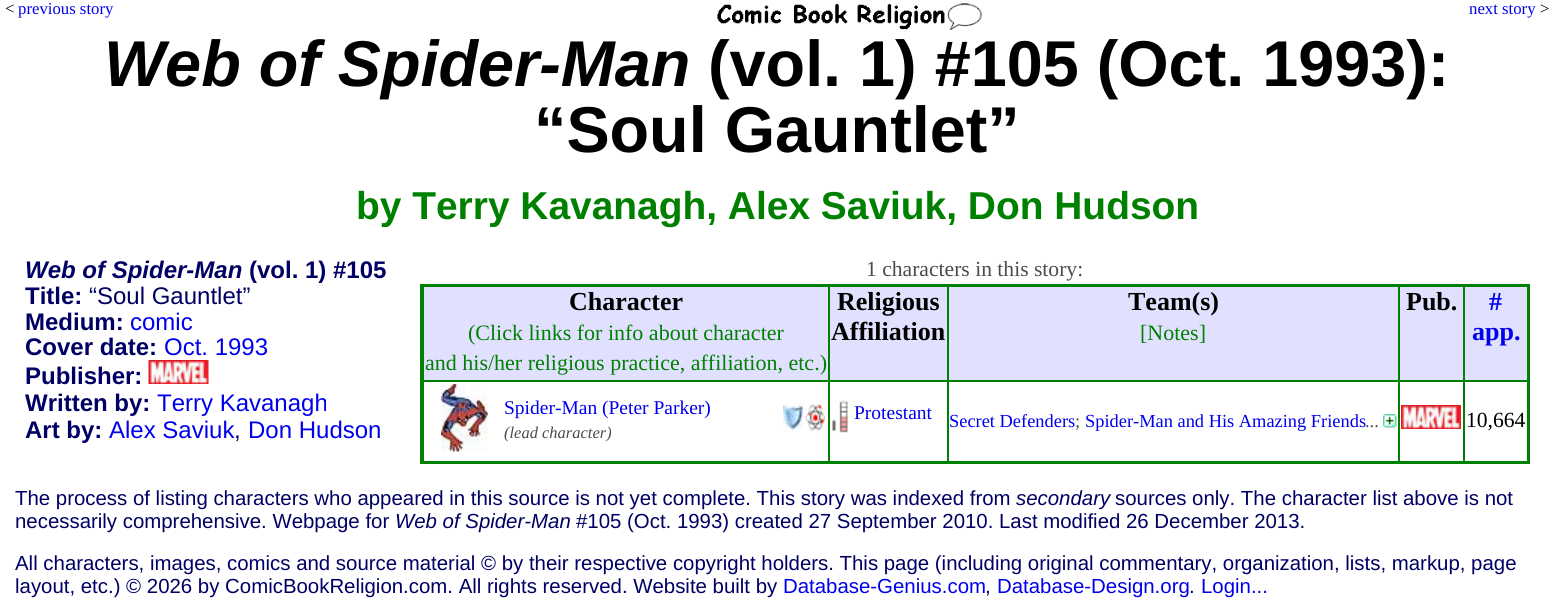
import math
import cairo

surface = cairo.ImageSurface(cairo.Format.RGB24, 1553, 613)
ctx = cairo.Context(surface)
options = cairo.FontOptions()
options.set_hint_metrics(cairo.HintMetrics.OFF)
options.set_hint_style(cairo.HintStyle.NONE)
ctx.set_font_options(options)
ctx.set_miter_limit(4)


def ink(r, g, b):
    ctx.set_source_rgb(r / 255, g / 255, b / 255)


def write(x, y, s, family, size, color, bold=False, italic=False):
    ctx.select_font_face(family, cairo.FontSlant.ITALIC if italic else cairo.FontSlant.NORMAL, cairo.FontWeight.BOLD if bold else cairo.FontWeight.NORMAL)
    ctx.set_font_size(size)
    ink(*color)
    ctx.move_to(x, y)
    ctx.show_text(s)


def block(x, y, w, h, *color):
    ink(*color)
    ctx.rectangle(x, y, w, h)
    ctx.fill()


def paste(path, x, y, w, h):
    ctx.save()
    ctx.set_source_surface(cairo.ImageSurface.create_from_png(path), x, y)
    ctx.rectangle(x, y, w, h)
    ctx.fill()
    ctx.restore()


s1 = dict(family="Liberation Serif", size=16.75, color=(0, 0, 0))
s2 = dict(family="Liberation Serif", size=16.75, color=(0, 0, 238))
s3 = dict(family="Liberation Sans", size=64.75, color=(0, 0, 0), bold=True, italic=True)
s4 = dict(family="Liberation Sans", size=64.75, color=(0, 0, 0), bold=True)
s5 = dict(family="Liberation Sans", size=38.9, color=(0, 128, 0), bold=True)
s6 = dict(family="Liberation Sans", size=24, color=(0, 0, 100), bold=True, italic=True)
s7 = dict(family="Liberation Sans", size=24, color=(0, 0, 100), bold=True)
s8 = dict(family="Liberation Sans", size=24, color=(0, 0, 100))
s9 = dict(family="Liberation Sans", size=24, color=(0, 0, 238))
s10 = dict(family="Liberation Serif", size=21.6, color=(75, 75, 75))
s11 = dict(family="Liberation Serif", size=26, color=(0, 0, 0), bold=True)
s12 = dict(family="Liberation Serif", size=22, color=(0, 128, 0))
s13 = dict(family="Liberation Serif", size=26, color=(0, 0, 238), bold=True)
s14 = dict(family="Liberation Serif", size=19.5, color=(0, 0, 238))
s15 = dict(family="Liberation Serif", size=16.5, color=(75, 75, 75), italic=True)
s16 = dict(family="Liberation Serif", size=18.4, color=(0, 0, 238))
s17 = dict(family="Liberation Serif", size=18.4, color=(75, 75, 75))
s18 = dict(family="Liberation Serif", size=21.6, color=(0, 0, 0))
s19 = dict(family="Liberation Sans", size=20.4, color=(0, 0, 100))
s20 = dict(family="Liberation Sans", size=20.4, color=(0, 0, 100), italic=True)
s21 = dict(family="Liberation Sans", size=20.4, color=(0, 0, 238))

ink(255, 255, 255)
ctx.paint()
write(5, 14, "<", **s1)
write(18, 14, "previous story", **s2)
paste("pic1.png", 717, 3, 266, 27)
write(1469, 14, "next story", **s2)
write(1540, 14, ">", **s1)
write(104, 86, "Web of Spider-Man", **s3)
write(708, 86, "(vol. 1) #105 (Oct. 1993):", **s4)
write(534, 152, "“Soul Gauntlet”", **s4)
write(356, 219, "by Terry Kavanagh, Alex Saviuk, Don Hudson", **s5)
write(25, 278, "Web of Spider-Man", **s6)
write(249, 278, "(vol. 1) #105", **s7)
write(25, 304, "Title:", **s7)
write(89, 304, "“Soul Gauntlet”", **s8)
write(25, 330, "Medium:", **s7)
write(130, 330, "comic", **s9)
write(25, 355, "Cover date:", **s7)
write(164, 355, "Oct. 1993", **s9)
write(25, 384, "Publisher:", **s7)
paste("pic2.png", 148, 360, 61, 24)
write(25, 411, "Written by:", **s7)
write(157, 411, "Terry Kavanagh", **s9)
write(25, 438, "Art by:", **s7)
write(109, 438, "Alex Saviuk", **s9)
write(234, 438, ",", **s8)
write(248, 438, "Don Hudson", **s9)
write(866, 276, "1 characters in this story:", **s10)
block(1463, 380, 66, 2, 0, 128, 0)
block(1463, 380, 2, 82, 0, 128, 0)
block(1398, 380, 66, 2, 0, 128, 0)
block(1398, 380, 2, 82, 0, 128, 0)
block(947, 380, 453, 2, 0, 128, 0)
block(947, 380, 2, 82, 0, 128, 0)
block(828, 380, 120, 2, 0, 128, 0)
block(828, 380, 2, 82, 0, 128, 0)
block(422, 380, 408, 2, 0, 128, 0)
block(828, 284, 2, 97, 0, 128, 0)
block(947, 284, 2, 97, 0, 128, 0)
block(1398, 284, 2, 97, 0, 128, 0)
block(1463, 284, 2, 97, 0, 128, 0)
block(423, 284, 1, 178, 0, 128, 0)
block(420, 284, 1110, 3, 0, 128, 0)
block(1527, 284, 3, 180, 0, 128, 0)
block(420, 461, 1110, 3, 0, 128, 0)
block(420, 284, 3, 180, 0, 128, 0)
block(424, 287, 404, 93, 225, 225, 255)
write(569, 310, "Character", **s11)
write(468, 340, "(Click links for info about character", **s12)
write(425, 370, "and his/her religious practice, affiliation, etc.)", **s12)
block(830, 287, 117, 93, 225, 225, 255)
write(837, 310, "Religious", **s11)
write(831, 340, "Affiliation", **s11)
block(949, 287, 449, 93, 225, 225, 255)
write(1128, 310, "Team(s)", **s11)
write(1140, 340, "[Notes]", **s12)
block(1400, 287, 63, 93, 225, 225, 255)
write(1406, 310, "Pub.", **s11)
block(1465, 287, 62, 93, 225, 225, 255)
write(1489, 310, "#", **s13)
write(1472, 340, "app.", **s13)
paste("pic3.png", 441, 384, 47, 68)
write(504, 414, "Spider-Man (Peter Parker)", **s14)
write(504, 438, "(lead character)", **s15)
paste("pic4.png", 783, 403, 20, 29)
paste("pic5.png", 805, 404, 20, 27)
paste("pic6.png", 832, 400, 16, 33)
write(854, 419, "Protestant", **s14)
write(949, 427, "Secret Defenders", **s16)
write(1075, 427, ";", **s17)
write(1085, 427, "Spider-Man and His Amazing Friends", **s16)
write(1365, 427, "...", **s17)
paste("pic7.png", 1383, 414, 14, 14)
paste("pic8.png", 1401, 405, 60, 24)
write(1466, 427, "10,664", **s18)
write(15, 505, "The process of listing characters who appeared in this source is not yet complete. This story was indexed from", **s19)
write(1016, 505, "secondary", **s20)
write(1115, 505, "sources only. The character list above is not", **s19)
write(15, 528, "necessarily comprehensive. Webpage for", **s19)
write(395, 528, "Web of Spider-Man", **s20)
write(576, 528, "#105 (Oct. 1993) created 27 September 2010. Last modified 26 December 2013.", **s19)
write(15, 570, "All characters, images, comics and source material © by their respective copyright holders. This page (including original commentary, organization, lists, markup, page", **s19)
write(15, 593, "layout, etc.) © 2026 by ComicBookReligion.com. All rights reserved. Website built by", **s19)
write(783, 593, "Database-Genius.com", **s21)
write(985, 593, ",", **s19)
write(997, 593, "Database-Design.org", **s21)
write(1189, 593, ".", **s19)
write(1201, 593, "Login...", **s21)
surface.write_to_png("screenshot.png")
